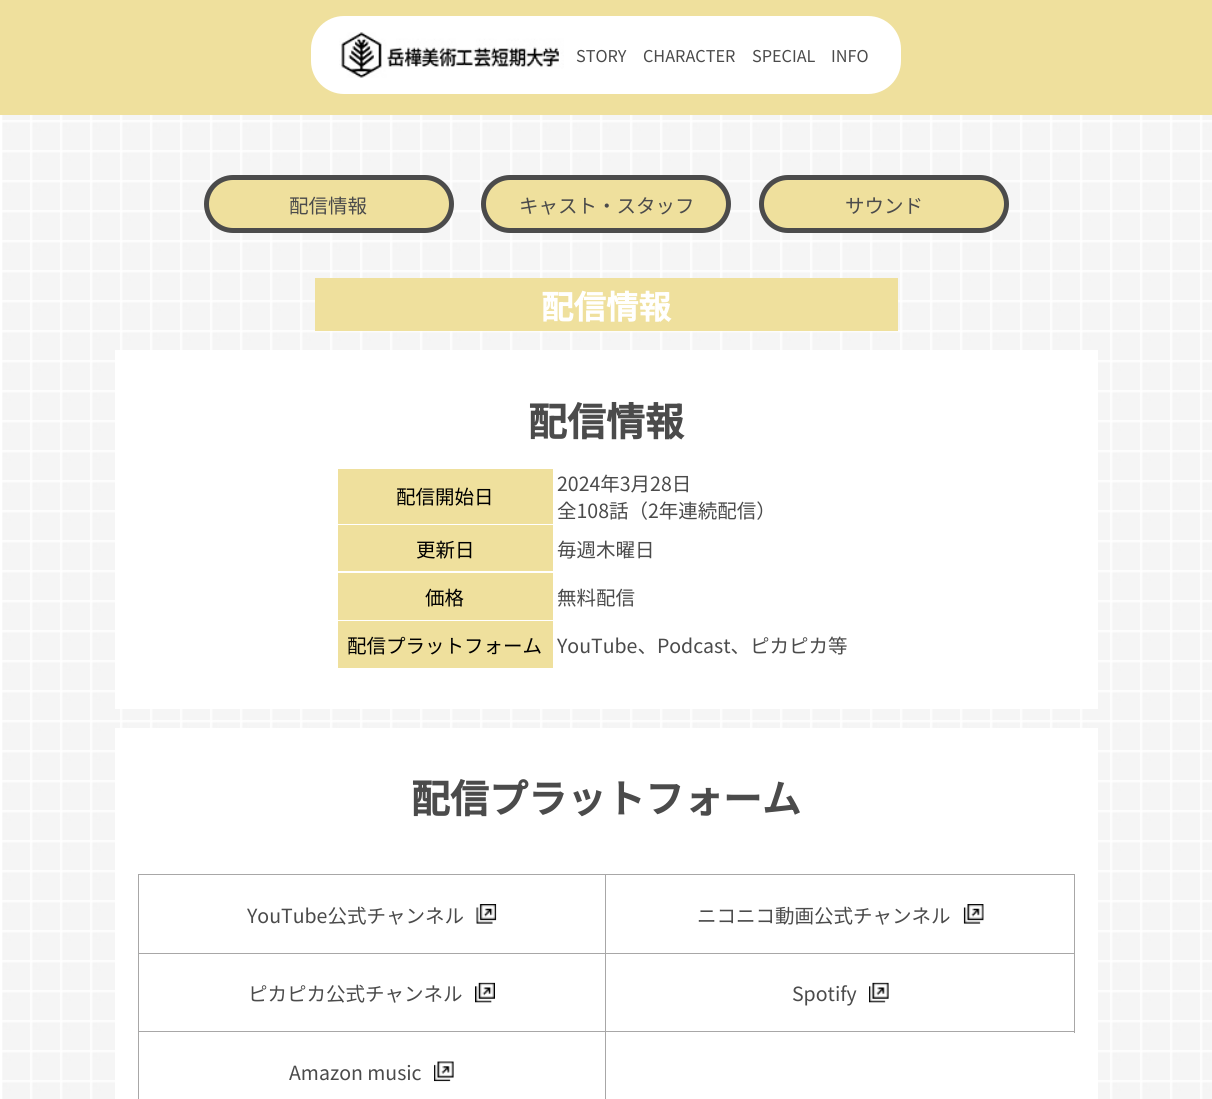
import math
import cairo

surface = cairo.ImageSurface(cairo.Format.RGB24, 1212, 1099)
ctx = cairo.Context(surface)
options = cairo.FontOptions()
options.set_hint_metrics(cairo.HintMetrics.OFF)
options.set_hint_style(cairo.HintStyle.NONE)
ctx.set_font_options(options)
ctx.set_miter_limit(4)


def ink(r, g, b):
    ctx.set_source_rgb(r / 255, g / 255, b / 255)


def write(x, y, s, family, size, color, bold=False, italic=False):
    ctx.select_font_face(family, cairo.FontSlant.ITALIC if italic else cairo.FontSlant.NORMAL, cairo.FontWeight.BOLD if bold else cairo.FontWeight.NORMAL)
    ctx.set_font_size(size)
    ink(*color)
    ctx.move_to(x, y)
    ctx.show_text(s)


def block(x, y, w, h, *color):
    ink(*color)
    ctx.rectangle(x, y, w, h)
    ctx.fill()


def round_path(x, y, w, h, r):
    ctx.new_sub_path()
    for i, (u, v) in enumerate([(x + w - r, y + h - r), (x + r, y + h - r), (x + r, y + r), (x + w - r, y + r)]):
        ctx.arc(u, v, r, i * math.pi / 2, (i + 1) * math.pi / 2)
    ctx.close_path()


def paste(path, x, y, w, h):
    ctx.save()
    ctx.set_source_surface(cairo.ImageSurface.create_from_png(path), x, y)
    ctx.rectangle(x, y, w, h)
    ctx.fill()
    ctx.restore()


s1 = dict(family="Noto Sans JP Thin", size=16.25, color=(75, 75, 75))
s2 = dict(family="Noto Sans JP Thin", size=19.5, color=(75, 75, 75))
s3 = dict(family="Noto Sans JP", size=32.5, color=(255, 255, 255), bold=True)
s4 = dict(family="Noto Sans JP", size=39, color=(75, 75, 75), bold=True)
s5 = dict(family="Noto Sans JP Thin", size=19.5, color=(0, 0, 0))

ink(255, 255, 255)
ctx.paint()
paste("pic1.png", 2, 115, 1210, 984)
block(0, 0, 1212, 115, 239, 224, 157)
ink(255, 255, 255)
round_path(311, 16, 590, 78, 33)
ctx.fill()
paste("pic2.png", 339, 32, 225, 46)
write(576, 62, "STORY", **s1)
write(643, 62, "CHARACTER", **s1)
write(752, 62, "SPECIAL", **s1)
write(831, 62, "INFO", **s1)
ink(239, 224, 157)
round_path(206.5, 177.5, 245, 53, 26.5)
ctx.fill_preserve()
ink(75, 75, 75)
ctx.set_line_width(5)
ctx.stroke()
write(289, 213, "配信情報", **s2)
ink(239, 224, 157)
round_path(483.5, 177.5, 245, 53, 26.5)
ctx.fill_preserve()
ink(75, 75, 75)
ctx.stroke()
write(519, 213, "キャスト・スタッフ", **s2)
ink(239, 224, 157)
round_path(761.5, 177.5, 245, 53, 26.5)
ctx.fill_preserve()
ink(75, 75, 75)
ctx.stroke()
write(845, 213, "サウンド", **s2)
block(315, 278, 583, 53, 239, 224, 157)
write(541, 319, "配信情報", **s3)
block(115, 350, 983, 359, 255, 255, 255)
write(528, 436, "配信情報", **s4)
block(338, 469, 215, 55, 239, 224, 157)
write(396, 504, "配信開始日", **s5)
write(557, 491, "2024年3月28日", **s2)
write(557, 518, "全108話（2年連続配信）", **s2)
block(338, 525, 215, 46, 239, 224, 157)
write(416, 557, "更新日", **s5)
write(557, 557, "毎週木曜日", **s2)
block(338, 573, 215, 47, 239, 224, 157)
write(425, 605, "価格", **s5)
write(557, 605, "無料配信", **s2)
block(338, 621, 215, 47, 239, 224, 157)
write(347, 653, "配信プラットフォーム", **s5)
write(557, 653, "YouTube、Podcast、ピカピカ等", **s2)
block(115, 728, 983, 371, 255, 255, 255)
write(411, 813, "配信プラットフォーム", **s4)
ctx.rectangle(138.5, 874.5, 467, 79)
ink(168, 167, 167)
ctx.set_line_width(1)
ctx.stroke()
write(247, 923, "YouTube公式チャンネル", **s2)
paste("pic3.png", 476, 904, 21, 20)
block(606, 874, 469, 1, 168, 167, 167)
block(1074, 874, 1, 159, 168, 167, 167)
block(606, 953, 469, 1, 168, 167, 167)
write(697, 923, "ニコニコ動画公式チャンネル", **s2)
paste("pic4.png", 963, 904, 21, 20)
block(605, 954, 1, 145, 168, 167, 167)
block(138, 1031, 937, 1, 168, 167, 167)
block(138, 954, 1, 145, 168, 167, 167)
write(248, 1001, "ピカピカ公式チャンネル", **s2)
paste("pic5.png", 475, 982, 20, 21)
write(792, 1001, "Spotify", **s2)
paste("pic6.png", 869, 982, 20, 21)
write(289, 1080, "Amazon music", **s2)
paste("pic7.png", 434, 1061, 20, 21)
surface.write_to_png("screenshot.png")
